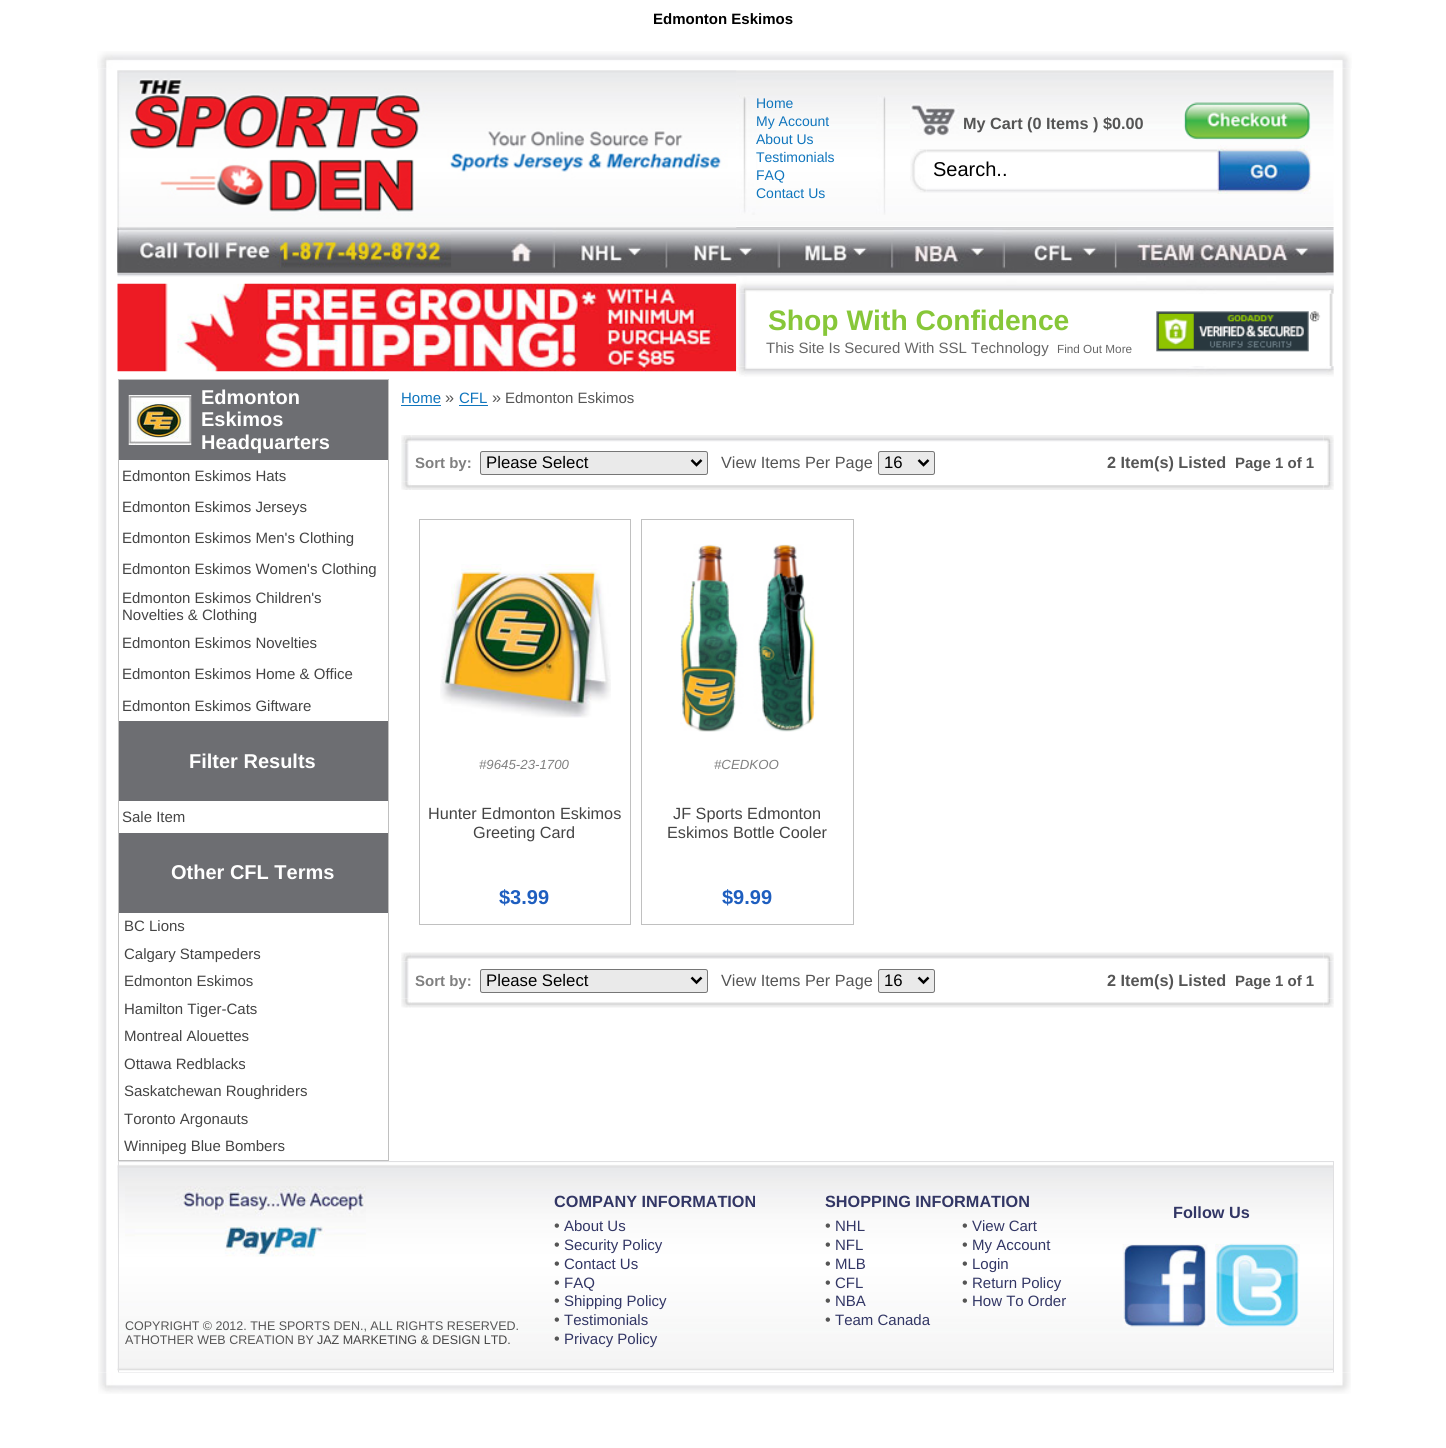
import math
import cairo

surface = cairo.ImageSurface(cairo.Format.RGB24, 1446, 1448)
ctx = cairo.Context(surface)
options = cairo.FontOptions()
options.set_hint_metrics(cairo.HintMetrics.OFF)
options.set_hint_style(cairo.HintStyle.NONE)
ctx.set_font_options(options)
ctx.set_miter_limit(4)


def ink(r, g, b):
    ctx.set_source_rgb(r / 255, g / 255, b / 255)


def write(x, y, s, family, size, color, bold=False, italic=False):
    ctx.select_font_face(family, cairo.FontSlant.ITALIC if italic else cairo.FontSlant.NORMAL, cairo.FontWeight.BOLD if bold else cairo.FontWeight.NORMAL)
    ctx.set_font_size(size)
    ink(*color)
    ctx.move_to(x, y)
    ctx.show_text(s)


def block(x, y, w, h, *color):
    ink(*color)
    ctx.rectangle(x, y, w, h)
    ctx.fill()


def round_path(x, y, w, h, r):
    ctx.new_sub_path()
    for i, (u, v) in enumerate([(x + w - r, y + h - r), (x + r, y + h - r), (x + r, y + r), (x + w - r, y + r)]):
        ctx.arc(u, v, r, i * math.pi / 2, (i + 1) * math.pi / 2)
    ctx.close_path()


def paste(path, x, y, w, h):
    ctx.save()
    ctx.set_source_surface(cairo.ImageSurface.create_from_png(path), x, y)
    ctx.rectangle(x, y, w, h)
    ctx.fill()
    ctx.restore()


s1 = dict(family="Liberation Sans", size=15, color=(0, 0, 0), bold=True)
s2 = dict(family="Liberation Sans", size=14, color=(15, 117, 189))
s3 = dict(family="Liberation Sans", size=16.25, color=(85, 85, 85), bold=True)
s4 = dict(family="Liberation Sans", size=20, color=(0, 0, 0))
s5 = dict(family="Liberation Sans", size=28.25, color=(135, 199, 57), bold=True)
s6 = dict(family="Liberation Sans", size=15, color=(102, 102, 102))
s7 = dict(family="Liberation Sans", size=11.75, color=(102, 102, 102))
s8 = dict(family="Liberation Sans", size=20, color=(255, 255, 255), bold=True)
s9 = dict(family="Liberation Sans", size=15, color=(68, 68, 68))
s10 = dict(family="Liberation Sans", size=15, color=(15, 117, 189))
s11 = dict(family="Liberation Sans", size=16.25, color=(85, 85, 85))
s12 = dict(family="Liberation Sans", size=15, color=(85, 85, 85))
s13 = dict(family="Liberation Sans", size=15, color=(128, 128, 128), bold=True)
s14 = dict(family="Liberation Sans", size=16.75, color=(0, 0, 0))
s15 = dict(family="Liberation Sans", size=15, color=(85, 85, 85), bold=True)
s16 = dict(family="Liberation Sans", size=13.25, color=(128, 128, 128), italic=True)
s17 = dict(family="Liberation Sans", size=16.25, color=(68, 68, 68))
s18 = dict(family="Liberation Sans", size=20, color=(30, 94, 191), bold=True)
s19 = dict(family="Liberation Sans", size=12.5, color=(85, 85, 85))
s20 = dict(family="Liberation Sans", size=12.5, color=(68, 68, 68))
s21 = dict(family="Liberation Sans", size=16.25, color=(50, 54, 101), bold=True)
s22 = dict(family="Liberation Sans", size=15, color=(50, 54, 101))

ink(255, 255, 255)
ctx.paint()
write(653, 24, "Edmonton Eskimos", **s1)
paste("pic2.png", 98, 68, 9, 1305)
paste("pic3.png", 117, 70, 1217, 156)
paste("pic11.png", 117, 227, 1217, 50)
paste("pic32.png", 1333, 68, 18, 1305)
paste("pic1.png", 97, 51, 1255, 18)
paste("pic12.png", 117, 227, 335, 46)
paste("pic13.png", 451, 227, 102, 46)
paste("pic14.png", 552, 227, 5, 46)
paste("pic15.png", 556, 227, 108, 46)
paste("pic16.png", 663, 227, 5, 46)
paste("pic17.png", 667, 227, 111, 46)
paste("pic4.png", 117, 70, 620, 158)
paste("pic5.png", 739, 95, 147, 120)
write(756, 108, "Home", **s2)
write(756, 126, "My Account", **s2)
write(756, 144, "About Us", **s2)
write(756, 162, "Testimonials", **s2)
write(756, 180, "FAQ", **s2)
write(756, 198, "Contact Us", **s2)
paste("pic6.png", 910, 103, 49, 33)
write(963, 129, "My Cart (0 Items ) $0.00", **s3)
paste("pic7.png", 1182, 102, 129, 38)
paste("pic8.png", 910, 149, 16, 44)
paste("pic9.png", 926, 149, 292, 44)
write(933, 176, "Search..", **s4)
paste("pic10.png", 1217, 145, 95, 49)
paste("pic18.png", 777, 227, 5, 46)
paste("pic19.png", 781, 227, 109, 46)
paste("pic20.png", 890, 227, 4, 46)
paste("pic21.png", 893, 227, 110, 46)
paste("pic22.png", 1002, 227, 5, 46)
paste("pic23.png", 1006, 227, 108, 46)
paste("pic24.png", 1113, 227, 5, 46)
paste("pic25.png", 1117, 227, 210, 46)
paste("pic26.png", 117, 283, 620, 89)
paste("pic27.png", 736, 276, 598, 18)
paste("pic28.png", 736, 293, 11, 74)
write(768, 330, "Shop With Confidence", **s5)
write(766, 353, "This Site Is Secured With SSL Technology", **s6)
write(1057, 353, "Find Out More", **s7)
paste("pic29.png", 1156, 311, 165, 41)
paste("pic30.png", 1329, 293, 4, 74)
paste("pic31.png", 736, 366, 598, 11)
ctx.rectangle(118.5, 379.5, 270, 781)
ink(192, 192, 192)
ctx.set_line_width(1)
ctx.stroke()
block(119, 380, 269, 80, 109, 110, 114)
paste("pic33.png", 128, 395, 64, 50)
write(201, 404, "Edmonton", **s8)
write(201, 426, "Eskimos", **s8)
write(201, 449, "Headquarters", **s8)
write(122, 481, "Edmonton Eskimos Hats", **s9)
write(122, 512, "Edmonton Eskimos Jerseys", **s9)
write(122, 543, "Edmonton Eskimos Men's Clothing", **s9)
write(122, 574, "Edmonton Eskimos Women's Clothing", **s9)
write(122, 603, "Edmonton Eskimos Children's", **s9)
write(122, 620, "Novelties & Clothing", **s9)
write(122, 648, "Edmonton Eskimos Novelties", **s9)
write(122, 679, "Edmonton Eskimos Home & Office", **s9)
write(122, 711, "Edmonton Eskimos Giftware", **s9)
block(119, 721, 269, 80, 109, 110, 114)
write(189, 768, "Filter Results", **s8)
write(122, 822, "Sale Item", **s9)
block(119, 833, 269, 80, 109, 110, 114)
write(171, 879, "Other CFL Terms", **s8)
write(124, 931, "BC Lions", **s9)
write(124, 959, "Calgary Stampeders", **s9)
write(124, 986, "Edmonton Eskimos", **s9)
write(124, 1014, "Hamilton Tiger-Cats", **s9)
write(124, 1041, "Montreal Alouettes", **s9)
write(124, 1069, "Ottawa Redblacks", **s9)
write(124, 1096, "Saskatchewan Roughriders", **s9)
write(124, 1124, "Toronto Argonauts", **s9)
write(124, 1151, "Winnipeg Blue Bombers", **s9)
write(401, 403, "Home", **s10)
block(401, 405, 40, 1, 15, 117, 189)
write(445, 403, "»", **s11)
write(459, 403, "CFL", **s10)
block(459, 405, 29, 1, 15, 117, 189)
write(492, 403, "»", **s11)
write(505, 403, "Edmonton Eskimos", **s12)
paste("pic38.png", 401, 443, 8, 39)
paste("pic34.png", 401, 435, 10, 9)
paste("pic35.png", 411, 435, 913, 7)
paste("pic36.png", 411, 437, 1, 4)
paste("pic39.png", 1327, 443, 7, 39)
paste("pic37.png", 1324, 435, 10, 9)
write(415, 468, "Sort by:", **s13)
ink(234, 234, 234)
round_path(480.5, 451.5, 227, 23, 2)
ctx.fill_preserve()
ink(118, 118, 118)
ctx.stroke()
ctx.new_path()
ctx.move_to(691.5, 460)
ctx.line_to(696.5, 465)
ctx.line_to(701.5, 460)
ink(0, 0, 0)
ctx.set_line_width(2.5)
ctx.stroke()
write(486, 468, "Please Select", **s14)
write(721, 468, "View Items Per Page", **s11)
ink(234, 234, 234)
round_path(878.5, 451.5, 56, 23, 2)
ctx.fill_preserve()
ink(118, 118, 118)
ctx.set_line_width(1)
ctx.stroke()
ctx.new_path()
ctx.move_to(918.5, 460)
ctx.line_to(923.5, 465)
ctx.line_to(928.5, 460)
ink(0, 0, 0)
ctx.set_line_width(2.5)
ctx.stroke()
write(884, 468, "16", **s14)
write(1107, 468, "2 Item(s) Listed", **s3)
write(1235, 468, "Page 1 of 1", **s15)
paste("pic40.png", 401, 481, 10, 9)
paste("pic41.png", 411, 485, 913, 5)
paste("pic42.png", 411, 485, 1, 4)
paste("pic43.png", 1324, 481, 10, 9)
ctx.rectangle(419.5, 519.5, 211, 405)
ink(192, 192, 192)
ctx.set_line_width(1)
ctx.stroke()
paste("pic44.png", 440, 564, 171, 154)
write(479, 769, "#9645-23-1700", **s16)
write(428, 819, "Hunter Edmonton Eskimos", **s17)
write(473, 838, "Greeting Card", **s17)
write(499, 904, "$3.99", **s18)
ctx.rectangle(641.5, 519.5, 212, 405)
ink(192, 192, 192)
ctx.stroke()
paste("pic45.png", 680, 544, 136, 188)
write(714, 769, "#CEDKOO", **s16)
write(673, 819, "JF Sports Edmonton", **s17)
write(667, 838, "Eskimos Bottle Cooler", **s17)
write(722, 904, "$9.99", **s18)
paste("pic46.png", 401, 952, 10, 9)
paste("pic47.png", 411, 952, 913, 7)
paste("pic48.png", 411, 953, 1, 6)
paste("pic49.png", 1324, 952, 10, 9)
paste("pic50.png", 401, 961, 8, 38)
write(415, 986, "Sort by:", **s13)
ink(234, 234, 234)
round_path(480.5, 969.5, 227, 23, 2)
ctx.fill_preserve()
ink(118, 118, 118)
ctx.stroke()
ctx.new_path()
ctx.move_to(691.5, 977.5)
ctx.line_to(696.5, 982.5)
ctx.line_to(701.5, 977.5)
ink(0, 0, 0)
ctx.set_line_width(2.5)
ctx.stroke()
write(486, 986, "Please Select", **s14)
write(721, 986, "View Items Per Page", **s11)
ink(234, 234, 234)
round_path(878.5, 969.5, 56, 23, 2)
ctx.fill_preserve()
ink(118, 118, 118)
ctx.set_line_width(1)
ctx.stroke()
ctx.new_path()
ctx.move_to(918.5, 977.5)
ctx.line_to(923.5, 982.5)
ctx.line_to(928.5, 977.5)
ink(0, 0, 0)
ctx.set_line_width(2.5)
ctx.stroke()
write(884, 986, "16", **s14)
write(1107, 986, "2 Item(s) Listed", **s3)
write(1235, 986, "Page 1 of 1", **s15)
paste("pic51.png", 1327, 961, 7, 38)
paste("pic52.png", 401, 999, 10, 9)
paste("pic53.png", 411, 1002, 913, 6)
paste("pic54.png", 411, 1003, 1, 4)
paste("pic55.png", 1324, 999, 10, 9)
paste("pic56.png", 117, 1161, 1216, 210)
ctx.rectangle(118.5, 1161.5, 1215, 211)
ink(224, 224, 226)
ctx.set_line_width(1)
ctx.stroke()
write(125, 1330, "COPYRIGHT © 2012. THE SPORTS DEN., ALL RIGHTS RESERVED.", **s19)
write(125, 1344, "ATHOTHER WEB CREATION BY", **s19)
write(317, 1344, "JAZ MARKETING & DESIGN LTD.", **s20)
paste("pic57.png", 125, 1186, 241, 71)
write(554, 1207, "COMPANY INFORMATION", **s21)
write(825, 1207, "SHOPPING INFORMATION", **s21)
write(554, 1231, "•", **s11)
write(564, 1231, "About Us", **s22)
write(825, 1231, "•", **s11)
write(835, 1231, "NHL", **s22)
write(962, 1231, "•", **s11)
write(972, 1231, "View Cart", **s22)
write(554, 1250, "•", **s11)
write(564, 1250, "Security Policy", **s22)
write(825, 1250, "•", **s11)
write(835, 1250, "NFL", **s22)
write(962, 1250, "•", **s11)
write(972, 1250, "My Account", **s22)
write(554, 1269, "•", **s11)
write(564, 1269, "Contact Us", **s22)
write(825, 1269, "•", **s11)
write(835, 1269, "MLB", **s22)
write(962, 1269, "•", **s11)
write(972, 1269, "Login", **s22)
write(554, 1288, "•", **s11)
write(564, 1288, "FAQ", **s22)
write(825, 1288, "•", **s11)
write(835, 1288, "CFL", **s22)
write(962, 1288, "•", **s11)
write(972, 1288, "Return Policy", **s22)
write(554, 1306, "•", **s11)
write(564, 1306, "Shipping Policy", **s22)
write(825, 1306, "•", **s11)
write(835, 1306, "NBA", **s22)
write(962, 1306, "•", **s11)
write(972, 1306, "How To Order", **s22)
write(554, 1325, "•", **s11)
write(564, 1325, "Testimonials", **s22)
write(825, 1325, "•", **s11)
write(835, 1325, "Team Canada", **s22)
write(554, 1344, "•", **s11)
write(564, 1344, "Privacy Policy", **s22)
write(1173, 1218, "Follow Us", **s21)
paste("pic58.png", 1122, 1244, 86, 83)
paste("pic59.png", 1215, 1243, 85, 84)
paste("pic60.png", 98, 1372, 1253, 22)
surface.write_to_png("screenshot.png")
